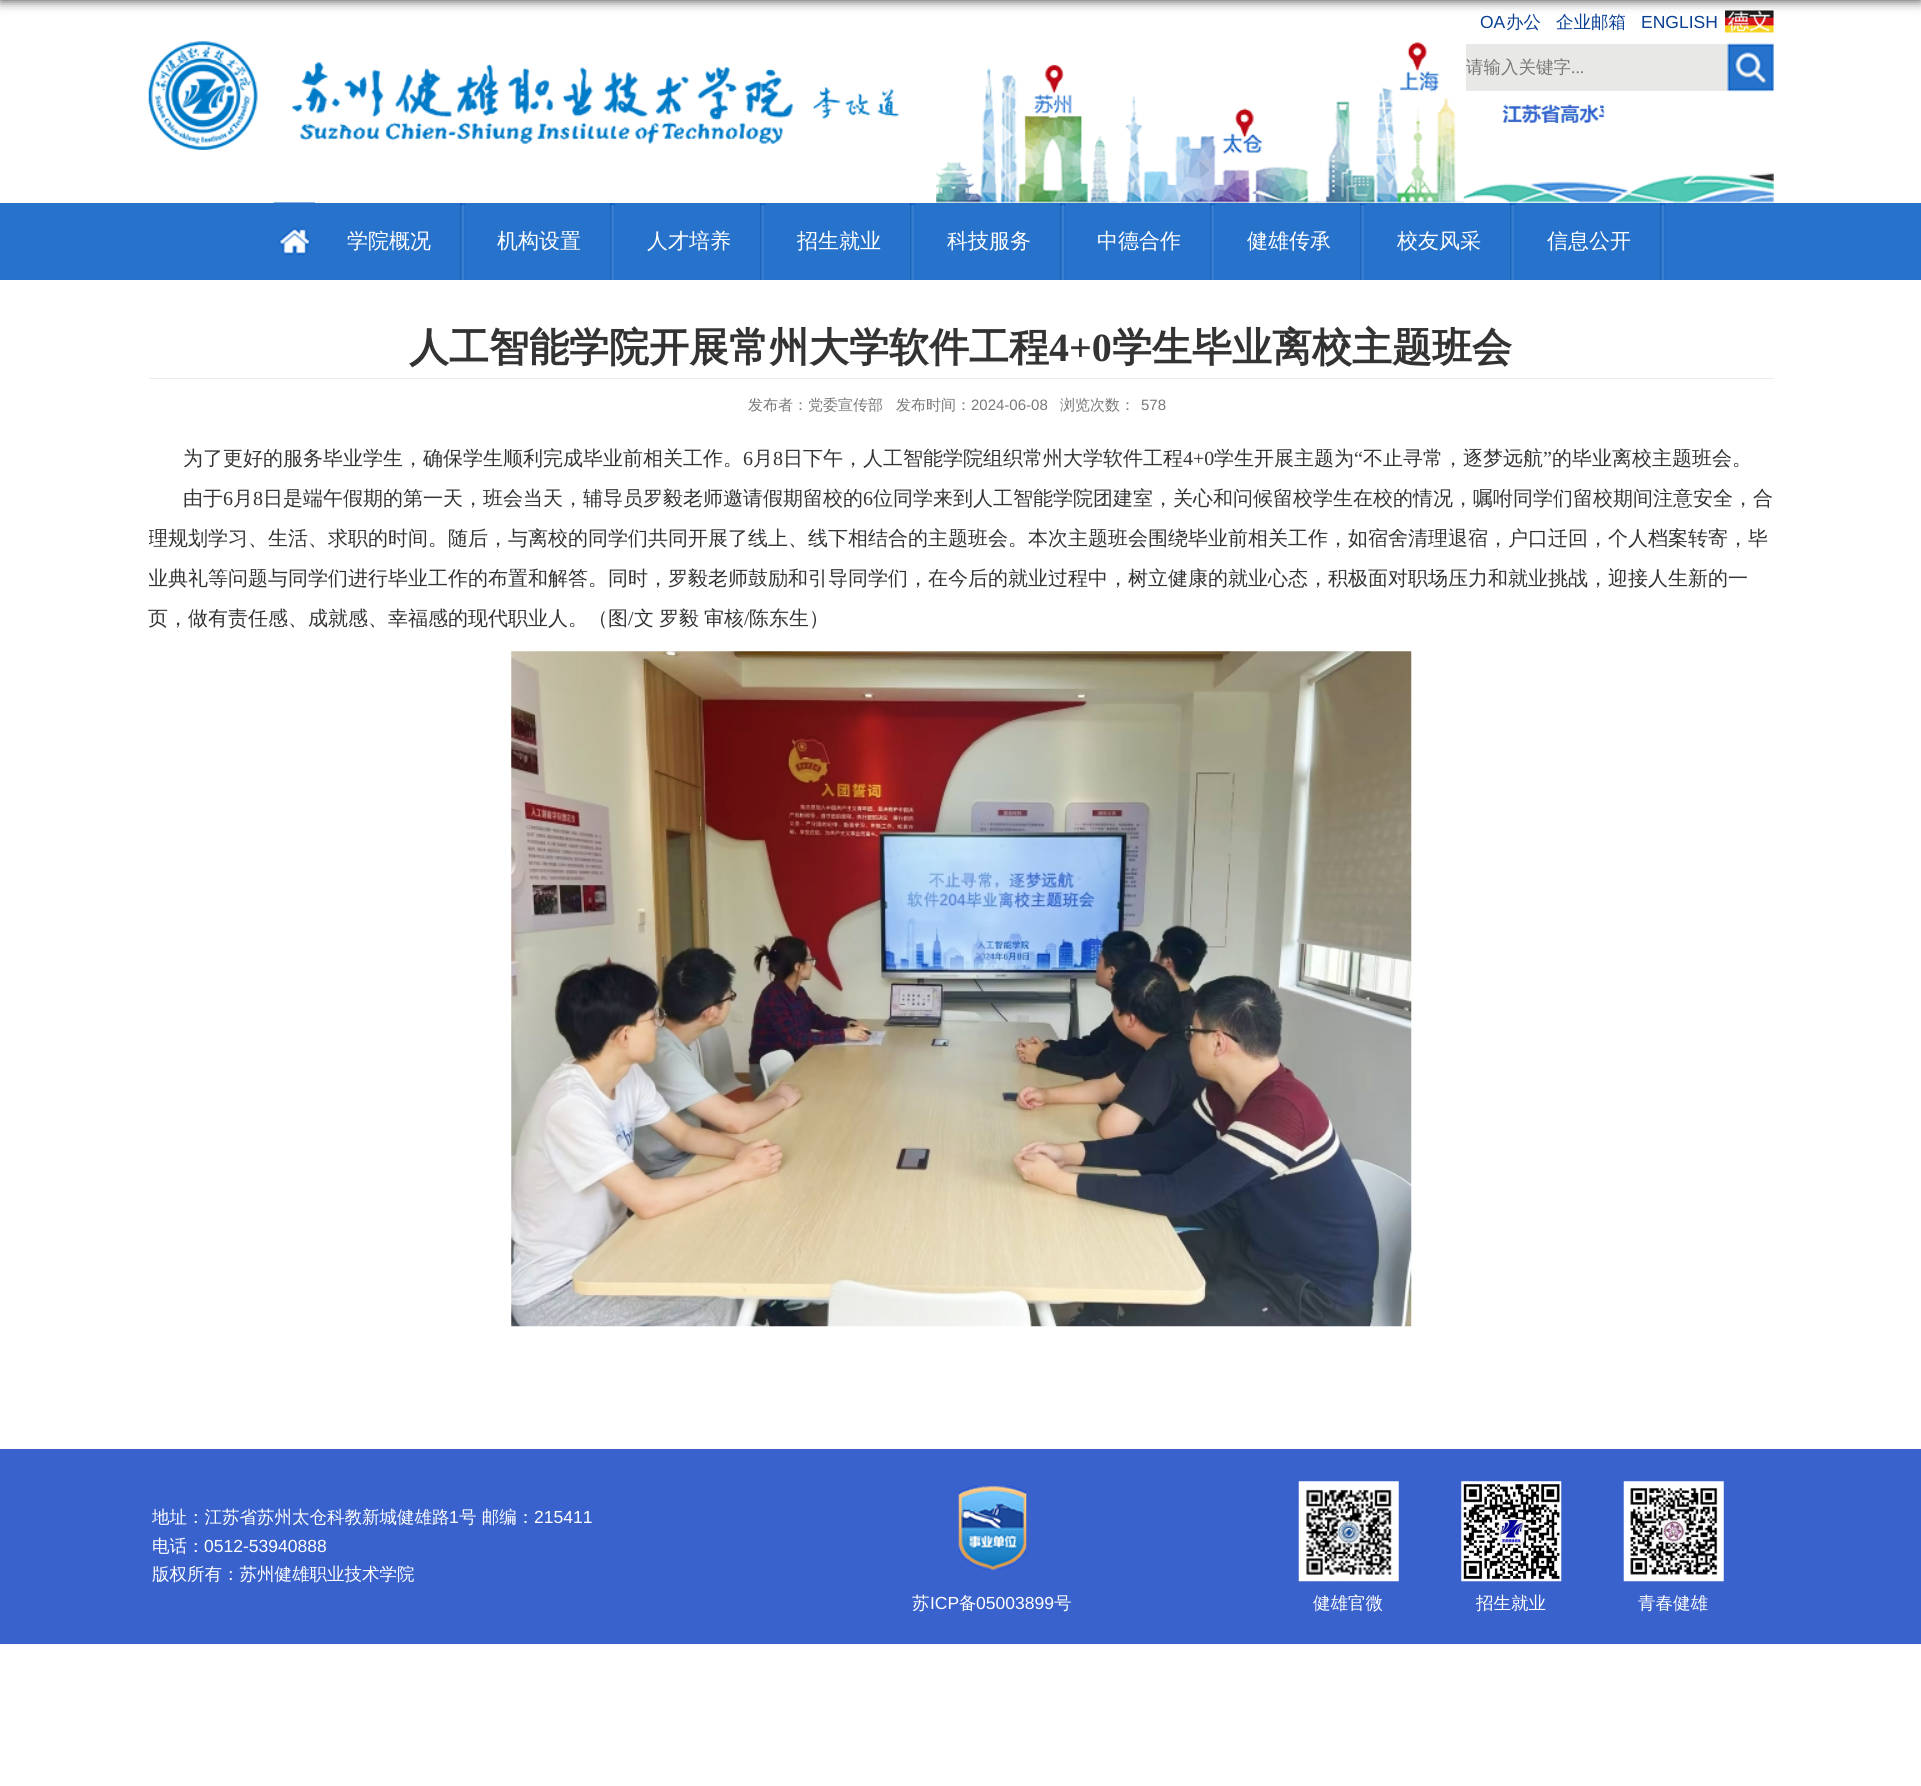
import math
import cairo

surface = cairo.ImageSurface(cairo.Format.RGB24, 1921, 1786)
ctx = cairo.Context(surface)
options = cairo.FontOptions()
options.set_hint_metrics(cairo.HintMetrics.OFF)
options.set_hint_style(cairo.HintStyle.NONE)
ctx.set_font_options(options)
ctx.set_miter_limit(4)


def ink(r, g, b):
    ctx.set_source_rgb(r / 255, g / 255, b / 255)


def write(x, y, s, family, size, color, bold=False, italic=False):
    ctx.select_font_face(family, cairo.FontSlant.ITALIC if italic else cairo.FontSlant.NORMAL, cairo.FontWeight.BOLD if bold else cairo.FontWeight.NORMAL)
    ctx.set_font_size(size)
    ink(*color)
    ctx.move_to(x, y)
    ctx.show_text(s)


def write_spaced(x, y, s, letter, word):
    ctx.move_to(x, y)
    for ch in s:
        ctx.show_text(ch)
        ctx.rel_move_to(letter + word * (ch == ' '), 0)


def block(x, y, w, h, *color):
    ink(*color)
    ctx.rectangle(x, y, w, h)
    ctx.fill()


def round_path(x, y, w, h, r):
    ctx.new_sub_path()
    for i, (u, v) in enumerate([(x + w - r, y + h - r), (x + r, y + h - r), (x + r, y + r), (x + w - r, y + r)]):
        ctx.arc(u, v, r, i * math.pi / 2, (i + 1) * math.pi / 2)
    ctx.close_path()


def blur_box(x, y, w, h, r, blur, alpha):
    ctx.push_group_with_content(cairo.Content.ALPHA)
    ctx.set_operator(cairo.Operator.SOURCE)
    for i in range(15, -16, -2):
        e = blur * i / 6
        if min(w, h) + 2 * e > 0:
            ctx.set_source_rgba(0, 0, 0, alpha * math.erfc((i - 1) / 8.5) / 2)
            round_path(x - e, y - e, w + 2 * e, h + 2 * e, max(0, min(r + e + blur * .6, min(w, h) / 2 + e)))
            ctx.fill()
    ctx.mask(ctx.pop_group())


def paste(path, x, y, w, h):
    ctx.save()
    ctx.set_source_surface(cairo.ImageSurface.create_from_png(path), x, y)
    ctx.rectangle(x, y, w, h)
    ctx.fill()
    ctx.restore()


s1 = dict(family="Liberation Sans", size=17.5, color=(9, 63, 147))
s2 = dict(family="WenQuanYi Zen Hei Medium", size=17.5, color=(9, 63, 147))
s3 = dict(family="WenQuanYi Zen Hei Medium", size=17.5, color=(120, 120, 120))
s4 = dict(family="Liberation Serif", size=17.5, color=(120, 120, 120))
s5 = dict(family="WenQuanYi Zen Hei Medium", size=21, color=(255, 255, 255))
s6 = dict(family="WenQuanYi Zen Hei", size=40, color=(51, 51, 51), bold=True)
s7 = dict(family="Liberation Serif", size=40, color=(51, 51, 51), bold=True)
s8 = dict(family="WenQuanYi Zen Hei Medium", size=15, color=(120, 120, 120))
s9 = dict(family="Liberation Sans", size=15, color=(120, 120, 120))
s10 = dict(family="WenQuanYi Zen Hei Medium", size=20, color=(51, 51, 51))
s11 = dict(family="Liberation Serif", size=20, color=(51, 51, 51))
s12 = dict(family="WenQuanYi Zen Hei Medium", size=17.5, color=(255, 255, 255))
s13 = dict(family="Liberation Sans", size=17.5, color=(255, 255, 255))

ink(255, 255, 255)
ctx.paint()
paste("pic3.png", 1725, 10, 49, 23)
ink(0, 0, 0)
blur_box(0, -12, 1921, 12, 0, 6, 0.8)
paste("pic1.png", 148, 41, 751, 109)
paste("pic2.png", 936, 42, 838, 161)
write(1480, 28, "OA", **s1)
write(1506, 28, "办公", **s2)
write(1556, 28, "企业邮箱", **s2)
write(1641, 28, "ENGLISH", **s1)
block(1466, 44, 262, 47, 232, 232, 230)
write(1466, 73, "请输入关键字", **s3)
write(1571, 73, "...", **s4)
paste("pic4.png", 1727, 43, 47, 49)
paste("pic5.png", 1502, 104, 103, 19)
block(0, 203, 1921, 77, 39, 115, 204)
paste("pic6.png", 273, 202, 42, 53)
paste("pic7.png", 460, 203, 5, 77)
write(347, 248, "学院概况", **s5)
paste("pic8.png", 610, 203, 5, 77)
write(497, 248, "机构设置", **s5)
paste("pic7.png", 760, 203, 5, 77)
write(647, 248, "人才培养", **s5)
paste("pic8.png", 910, 203, 5, 77)
write(797, 248, "招生就业", **s5)
paste("pic8.png", 1060, 203, 5, 77)
write(947, 248, "科技服务", **s5)
paste("pic8.png", 1210, 203, 5, 77)
write(1097, 248, "中德合作", **s5)
paste("pic8.png", 1360, 203, 5, 77)
write(1247, 248, "健雄传承", **s5)
paste("pic8.png", 1510, 203, 5, 77)
write(1397, 248, "校友风采", **s5)
paste("pic8.png", 1660, 203, 5, 77)
write(1547, 248, "信息公开", **s5)
write(409, 361, "人工智能学院开展常州大学软件工程", **s6)
write(1049, 361, "4+0", **s7)
write(1112, 361, "学生毕业离校主题班会", **s6)
block(149, 378, 1625, 1, 236, 236, 236)
write(748, 410, "发布者：党委宣传部", **s8)
write(896, 410, "发布时间：", **s8)
write(971, 410, "2024-06-08", **s9)
write(1060, 410, "浏览次数：", **s8)
write(1141, 410, "578", **s9)
write(183, 465, "为了更好的服务毕业学生，确保学生顺利完成毕业前相关工作。", **s10)
write(743, 465, "6", **s11)
write(753, 465, "月", **s10)
write(773, 465, "8", **s11)
write(783, 465, "日下午，人工智能学院组织常州大学软件工程", **s10)
write(1183, 465, "4+0", **s11)
write(1214, 465, "学生开展主题为", **s10)
write(1354, 465, "“", **s11)
write(1363, 465, "不止寻常，逐梦远航", **s10)
write(1543, 465, "”", **s11)
write(1552, 465, "的毕业离校主题班会。", **s10)
write(183, 505, "由于", **s10)
write(223, 505, "6", **s11)
write(233, 505, "月", **s10)
write(253, 505, "8", **s11)
write(263, 505, "日是端午假期的第一天，班会当天，辅导员罗毅老师邀请假期留校的", **s10)
write(863, 505, "6", **s11)
write(873, 505, "位同学来到人工智能学院团建室，关心和问候留校学生在校的情况，嘱咐同学们留校期间注意安全，合", **s10)
ctx.save()
ctx.rectangle(149, 439, 1625, 985)
ctx.clip()
write(148, 545, "理规划学习、生活、求职的时间。随后，与离校的同学们共同开展了线上、线下相结合的主题班会。本次主题班会围绕毕业前相关工作，如宿舍清理退宿，户口迁回，个人档案转寄，毕", **s10)
write(148, 585, "业典礼等问题与同学们进行毕业工作的布置和解答。同时，罗毅老师鼓励和引导同学们，在今后的就业过程中，树立健康的就业心态，积极面对职场压力和就业挑战，迎接人生新的一", **s10)
ctx.restore()
write(148, 625, "页，做有责任感、成就感、幸福感的现代职业人。（图", **s10)
write(628, 625, "/", **s11)
ctx.select_font_face("WenQuanYi Zen Hei Medium")
write_spaced(634, 625, "文 罗毅 审核", 0, -1)
write(744, 625, "/", **s11)
write(749, 625, "陈东生）", **s10)
paste("pic9.png", 511, 651, 901, 676)
block(0, 1449, 1921, 195, 58, 98, 204)
write(152, 1523, "地址：江苏省苏州太仓科教新城健雄路", **s12)
write(449, 1523, "1", **s13)
write(459, 1523, "号 邮编：", **s12)
write(534, 1523, "215411", **s13)
write(152, 1552, "电话：", **s12)
write(204, 1552, "0512-53940888", **s13)
write(152, 1580, "版权所有：苏州健雄职业技术学院", **s12)
paste("pic10.png", 958, 1486, 69, 84)
write(912, 1609, "苏", **s12)
write(930, 1609, "ICP", **s13)
write(959, 1609, "备", **s12)
write(976, 1609, "05003899", **s13)
write(1054, 1609, "号", **s12)
paste("pic11.png", 1298, 1481, 101, 101)
write(1313, 1609, "健雄官微", **s12)
paste("pic12.png", 1461, 1481, 101, 101)
write(1476, 1609, "招生就业", **s12)
paste("pic13.png", 1623, 1481, 101, 101)
write(1638, 1609, "青春健雄", **s12)
surface.write_to_png("screenshot.png")
